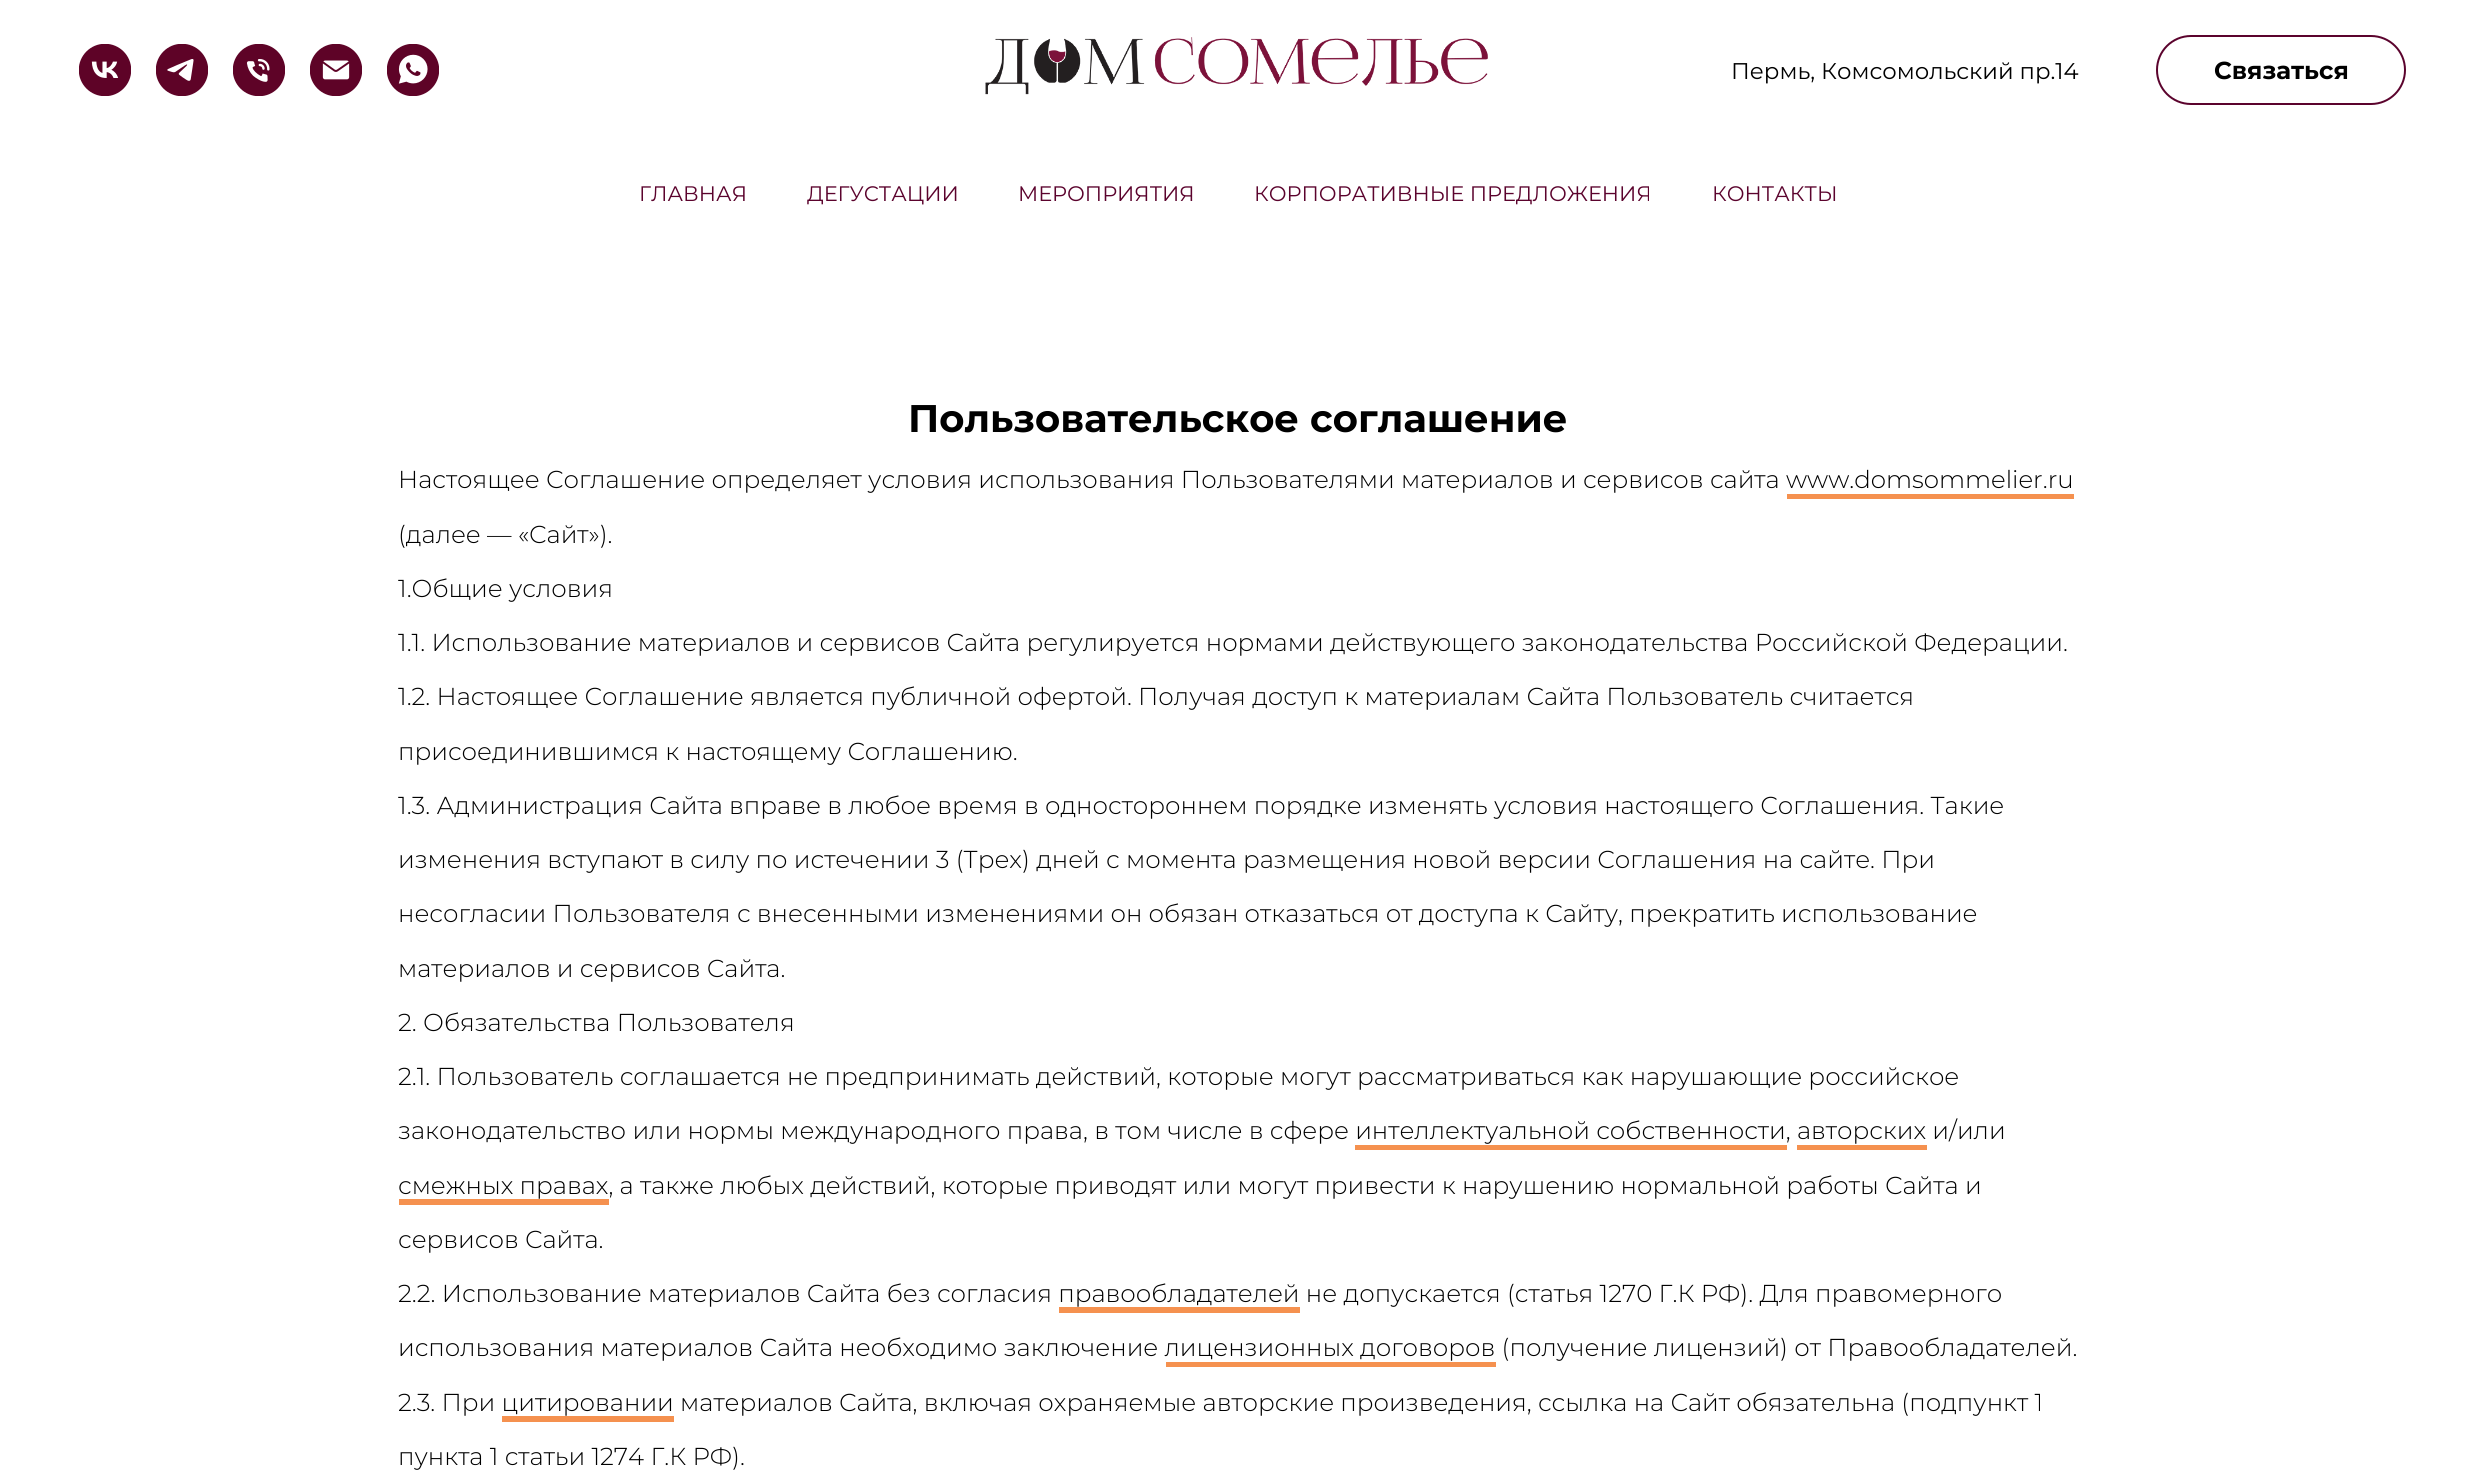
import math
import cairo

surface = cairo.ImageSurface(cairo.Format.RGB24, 2475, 1480)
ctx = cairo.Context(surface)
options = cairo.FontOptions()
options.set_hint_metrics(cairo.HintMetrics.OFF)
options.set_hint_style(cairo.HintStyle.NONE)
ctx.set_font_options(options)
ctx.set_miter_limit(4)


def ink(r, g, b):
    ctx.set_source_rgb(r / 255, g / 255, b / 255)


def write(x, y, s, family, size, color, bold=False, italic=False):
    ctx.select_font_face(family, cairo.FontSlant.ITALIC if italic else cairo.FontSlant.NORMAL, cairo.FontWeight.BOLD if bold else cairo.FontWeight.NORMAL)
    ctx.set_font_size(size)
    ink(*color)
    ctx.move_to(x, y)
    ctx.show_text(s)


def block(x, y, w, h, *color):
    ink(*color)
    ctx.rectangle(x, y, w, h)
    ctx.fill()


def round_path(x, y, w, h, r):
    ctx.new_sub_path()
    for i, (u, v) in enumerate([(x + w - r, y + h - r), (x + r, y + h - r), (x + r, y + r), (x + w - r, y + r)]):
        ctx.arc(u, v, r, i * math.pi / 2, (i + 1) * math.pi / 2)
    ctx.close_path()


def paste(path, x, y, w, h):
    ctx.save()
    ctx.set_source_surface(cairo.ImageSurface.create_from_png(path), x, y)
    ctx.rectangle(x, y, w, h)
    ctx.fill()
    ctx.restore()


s1 = dict(family="Montserrat", size=22.75, color=(0, 0, 0))
s2 = dict(family="Montserrat", size=24.5, color=(0, 0, 0), bold=True)
s3 = dict(family="Montserrat", size=21, color=(91, 3, 45))
s4 = dict(family="Montserrat", size=38.5, color=(0, 0, 0), bold=True)
s5 = dict(family="Montserrat Light", size=24.5, color=(0, 0, 0))

ink(255, 255, 255)
ctx.paint()
paste("pic1.png", 985, 37, 503, 58)
paste("pic2.png", 79, 44, 52, 52)
paste("pic3.png", 156, 44, 52, 52)
paste("pic4.png", 233, 44, 52, 52)
paste("pic5.png", 310, 44, 52, 52)
paste("pic6.png", 387, 44, 52, 52)
write(1731, 79, "Пермь, Комсомольский пр.14", **s1)
round_path(2157, 36, 248, 68, 34)
ink(91, 3, 45)
ctx.stroke()
write(2214, 79, "Связаться", **s2)
write(639, 201, "ГЛАВНАЯ", **s3)
write(807, 201, "ДЕГУСТАЦИИ", **s3)
write(1018, 201, "МЕРОПРИЯТИЯ", **s3)
write(1254, 201, "КОРПОРАТИВНЫЕ ПРЕДЛОЖЕНИЯ", **s3)
write(1712, 201, "КОНТАКТЫ", **s3)
write(908, 432, "Пользовательское соглашение", **s4)
write(398, 488, "Настоящее Соглашение определяет условия использования Пользователями материалов и сервисов сайта www.domsommelier.ru", **s5)
block(1787, 494, 287, 5, 245, 145, 79)
write(398, 543, "(далее — «Сайт»).", **s5)
write(398, 597, "1.Общие условия", **s5)
write(398, 651, "1.1. Использование материалов и сервисов Сайта регулируется нормами действующего законодательства Российской Федерации.", **s5)
write(398, 705, "1.2. Настоящее Соглашение является публичной офертой. Получая доступ к материалам Сайта Пользователь считается", **s5)
write(398, 760, "присоединившимся к настоящему Соглашению.", **s5)
write(398, 814, "1.3. Администрация Сайта вправе в любое время в одностороннем порядке изменять условия настоящего Соглашения. Такие", **s5)
write(398, 868, "изменения вступают в силу по истечении 3 (Трех) дней с момента размещения новой версии Соглашения на сайте. При", **s5)
write(398, 922, "несогласии Пользователя с внесенными изменениями он обязан отказаться от доступа к Сайту, прекратить использование", **s5)
write(398, 977, "материалов и сервисов Сайта.", **s5)
write(398, 1031, "2. Обязательства Пользователя", **s5)
write(398, 1085, "2.1. Пользователь соглашается не предпринимать действий, которые могут рассматриваться как нарушающие российское", **s5)
write(398, 1139, "законодательство или нормы международного права, в том числе в сфере интеллектуальной собственности, авторских и/или", **s5)
block(1355, 1145, 432, 5, 245, 145, 79)
block(1797, 1145, 130, 5, 245, 145, 79)
write(398, 1194, "смежных правах, а также любых действий, которые приводят или могут привести к нарушению нормальной работы Сайта и", **s5)
block(399, 1199, 210, 6, 245, 145, 79)
write(398, 1248, "сервисов Сайта.", **s5)
write(398, 1302, "2.2. Использование материалов Сайта без согласия правообладателей не допускается (статья 1270 Г.К РФ). Для правомерного", **s5)
block(1059, 1307, 241, 6, 245, 145, 79)
write(398, 1356, "использования материалов Сайта необходимо заключение лицензионных договоров (получение лицензий) от Правообладателей.", **s5)
block(1166, 1362, 330, 5, 245, 145, 79)
write(398, 1411, "2.3. При цитировании материалов Сайта, включая охраняемые авторские произведения, ссылка на Сайт обязательна (подпункт 1", **s5)
block(502, 1416, 172, 6, 245, 145, 79)
write(398, 1465, "пункта 1 статьи 1274 Г.К РФ).", **s5)
surface.write_to_png("screenshot.png")
